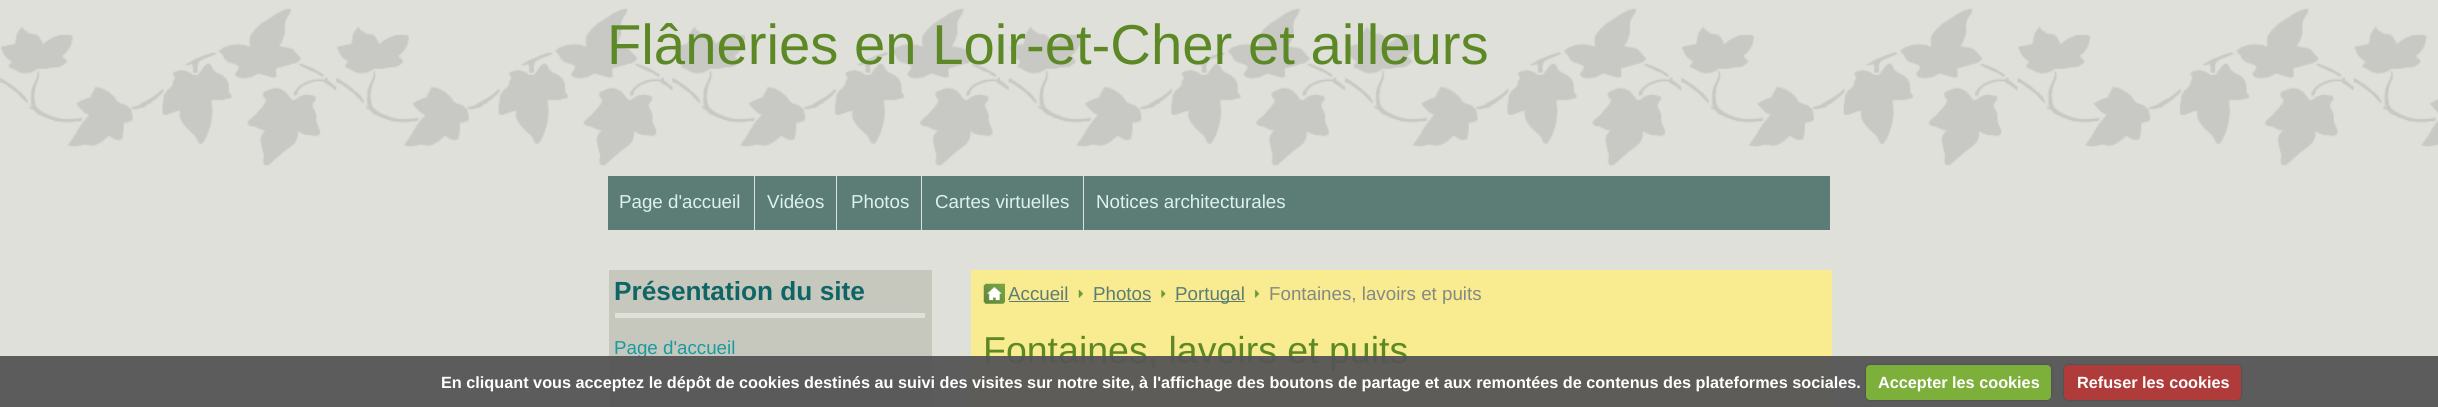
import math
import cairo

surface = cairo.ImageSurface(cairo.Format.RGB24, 2438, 407)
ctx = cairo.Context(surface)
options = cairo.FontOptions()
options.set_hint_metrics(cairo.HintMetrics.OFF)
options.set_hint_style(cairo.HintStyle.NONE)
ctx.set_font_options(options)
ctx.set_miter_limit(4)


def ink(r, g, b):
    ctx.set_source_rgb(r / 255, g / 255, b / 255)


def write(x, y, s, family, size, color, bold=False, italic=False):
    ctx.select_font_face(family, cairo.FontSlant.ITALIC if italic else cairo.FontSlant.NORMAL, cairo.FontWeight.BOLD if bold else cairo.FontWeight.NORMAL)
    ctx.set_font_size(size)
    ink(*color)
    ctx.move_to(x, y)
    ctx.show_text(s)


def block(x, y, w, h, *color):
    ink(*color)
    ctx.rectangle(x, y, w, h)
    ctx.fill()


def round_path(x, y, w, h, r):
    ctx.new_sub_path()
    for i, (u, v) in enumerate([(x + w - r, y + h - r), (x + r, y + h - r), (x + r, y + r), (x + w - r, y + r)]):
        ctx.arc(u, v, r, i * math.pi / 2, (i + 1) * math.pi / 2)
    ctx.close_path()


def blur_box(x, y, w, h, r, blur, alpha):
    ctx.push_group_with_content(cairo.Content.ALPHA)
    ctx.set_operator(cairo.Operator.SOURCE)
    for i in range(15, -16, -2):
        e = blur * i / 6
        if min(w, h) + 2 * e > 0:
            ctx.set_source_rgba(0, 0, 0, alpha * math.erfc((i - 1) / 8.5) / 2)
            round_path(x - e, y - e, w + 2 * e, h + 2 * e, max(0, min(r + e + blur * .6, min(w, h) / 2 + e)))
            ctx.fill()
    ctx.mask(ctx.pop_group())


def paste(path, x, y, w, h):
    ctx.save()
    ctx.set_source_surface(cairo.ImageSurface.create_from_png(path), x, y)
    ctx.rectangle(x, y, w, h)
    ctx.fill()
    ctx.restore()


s1 = dict(family="Liberation Sans", size=56.25, color=(93, 136, 38))
s2 = dict(family="Liberation Sans", size=18.75, color=(221, 241, 239))
s3 = dict(family="Liberation Sans", size=26.25, color=(15, 101, 101), bold=True)
s4 = dict(family="Liberation Sans", size=18.75, color=(24, 155, 160))
s5 = dict(family="Liberation Sans", size=18.75, color=(92, 125, 118))
s6 = dict(family="Liberation Sans", size=18.75, color=(132, 137, 133))
s7 = dict(family="Liberation Sans", size=37.5, color=(93, 136, 38))
s8 = dict(family="Liberation Sans", size=16.25, color=(255, 255, 255), bold=True)

ink(223, 224, 218)
ctx.paint()
paste("pic1.png", 0, 8, 2438, 158)
write(607, 64, "Flâneries en Loir-et-Cher et ailleurs", **s1)
block(608, 176, 1222, 54, 92, 125, 118)
block(754, 176, 1, 54, 223, 224, 218)
write(619, 208, "Page d'accueil", **s2)
block(836, 176, 1, 54, 223, 224, 218)
write(767, 208, "Vidéos", **s2)
block(921, 176, 1, 54, 223, 224, 218)
write(851, 208, "Photos", **s2)
block(1083, 176, 1, 54, 223, 224, 218)
write(935, 208, "Cartes virtuelles", **s2)
write(1096, 208, "Notices architecturales", **s2)
block(609, 270, 323, 137, 198, 200, 189)
block(615, 313, 310, 5, 223, 224, 218)
write(614, 300, "Présentation du site", **s3)
write(614, 354, "Page d'accueil", **s4)
block(971, 270, 861, 137, 249, 235, 143)
paste("pic2.png", 983, 283, 22, 21)
write(1008, 300, "Accueil", **s5)
block(1009, 301, 60, 1, 92, 125, 118)
paste("pic3.png", 1078, 289, 5, 9)
write(1093, 300, "Photos", **s5)
block(1093, 301, 58, 1, 92, 125, 118)
paste("pic4.png", 1161, 289, 5, 9)
block(1175, 301, 70, 1, 92, 125, 118)
write(1175, 300, "Portugal", **s5)
paste("pic5.png", 1254, 289, 5, 9)
write(1269, 300, "Fontaines, lavoirs et puits", **s6)
ctx.new_path()
ctx.move_to(984, 379.5)
ctx.line_to(1819, 379.5)
ink(223, 224, 218)
ctx.set_line_width(1.2)
ctx.set_dash([1.25, 1.25])
ctx.stroke()
write(983, 363, "Fontaines, lavoirs et puits", **s7)
ctx.set_source_rgba(0.337, 0.337, 0.337, 0.95)
ctx.rectangle(0, 356, 2438, 51)
ctx.fill()
write(441, 388, "En cliquant vous acceptez le dépôt de cookies destinés au suivi des visites sur notre site, à l'affichage des boutons de partage et aux remontées de contenus des plateformes sociales.", **s8)
ink(0, 0, 0)
blur_box(1866, 365, 185, 35, 4, 1, 0.25)
ink(125, 175, 59)
round_path(1866, 365, 185, 35, 4)
ctx.fill()
write(1878, 388, "Accepter les cookies", **s8)
ink(0, 0, 0)
blur_box(2064, 365, 177, 35, 4, 1, 0.25)
ink(175, 59, 59)
round_path(2064, 365, 177, 35, 4)
ctx.fill()
write(2077, 388, "Refuser les cookies", **s8)
surface.write_to_png("screenshot.png")
